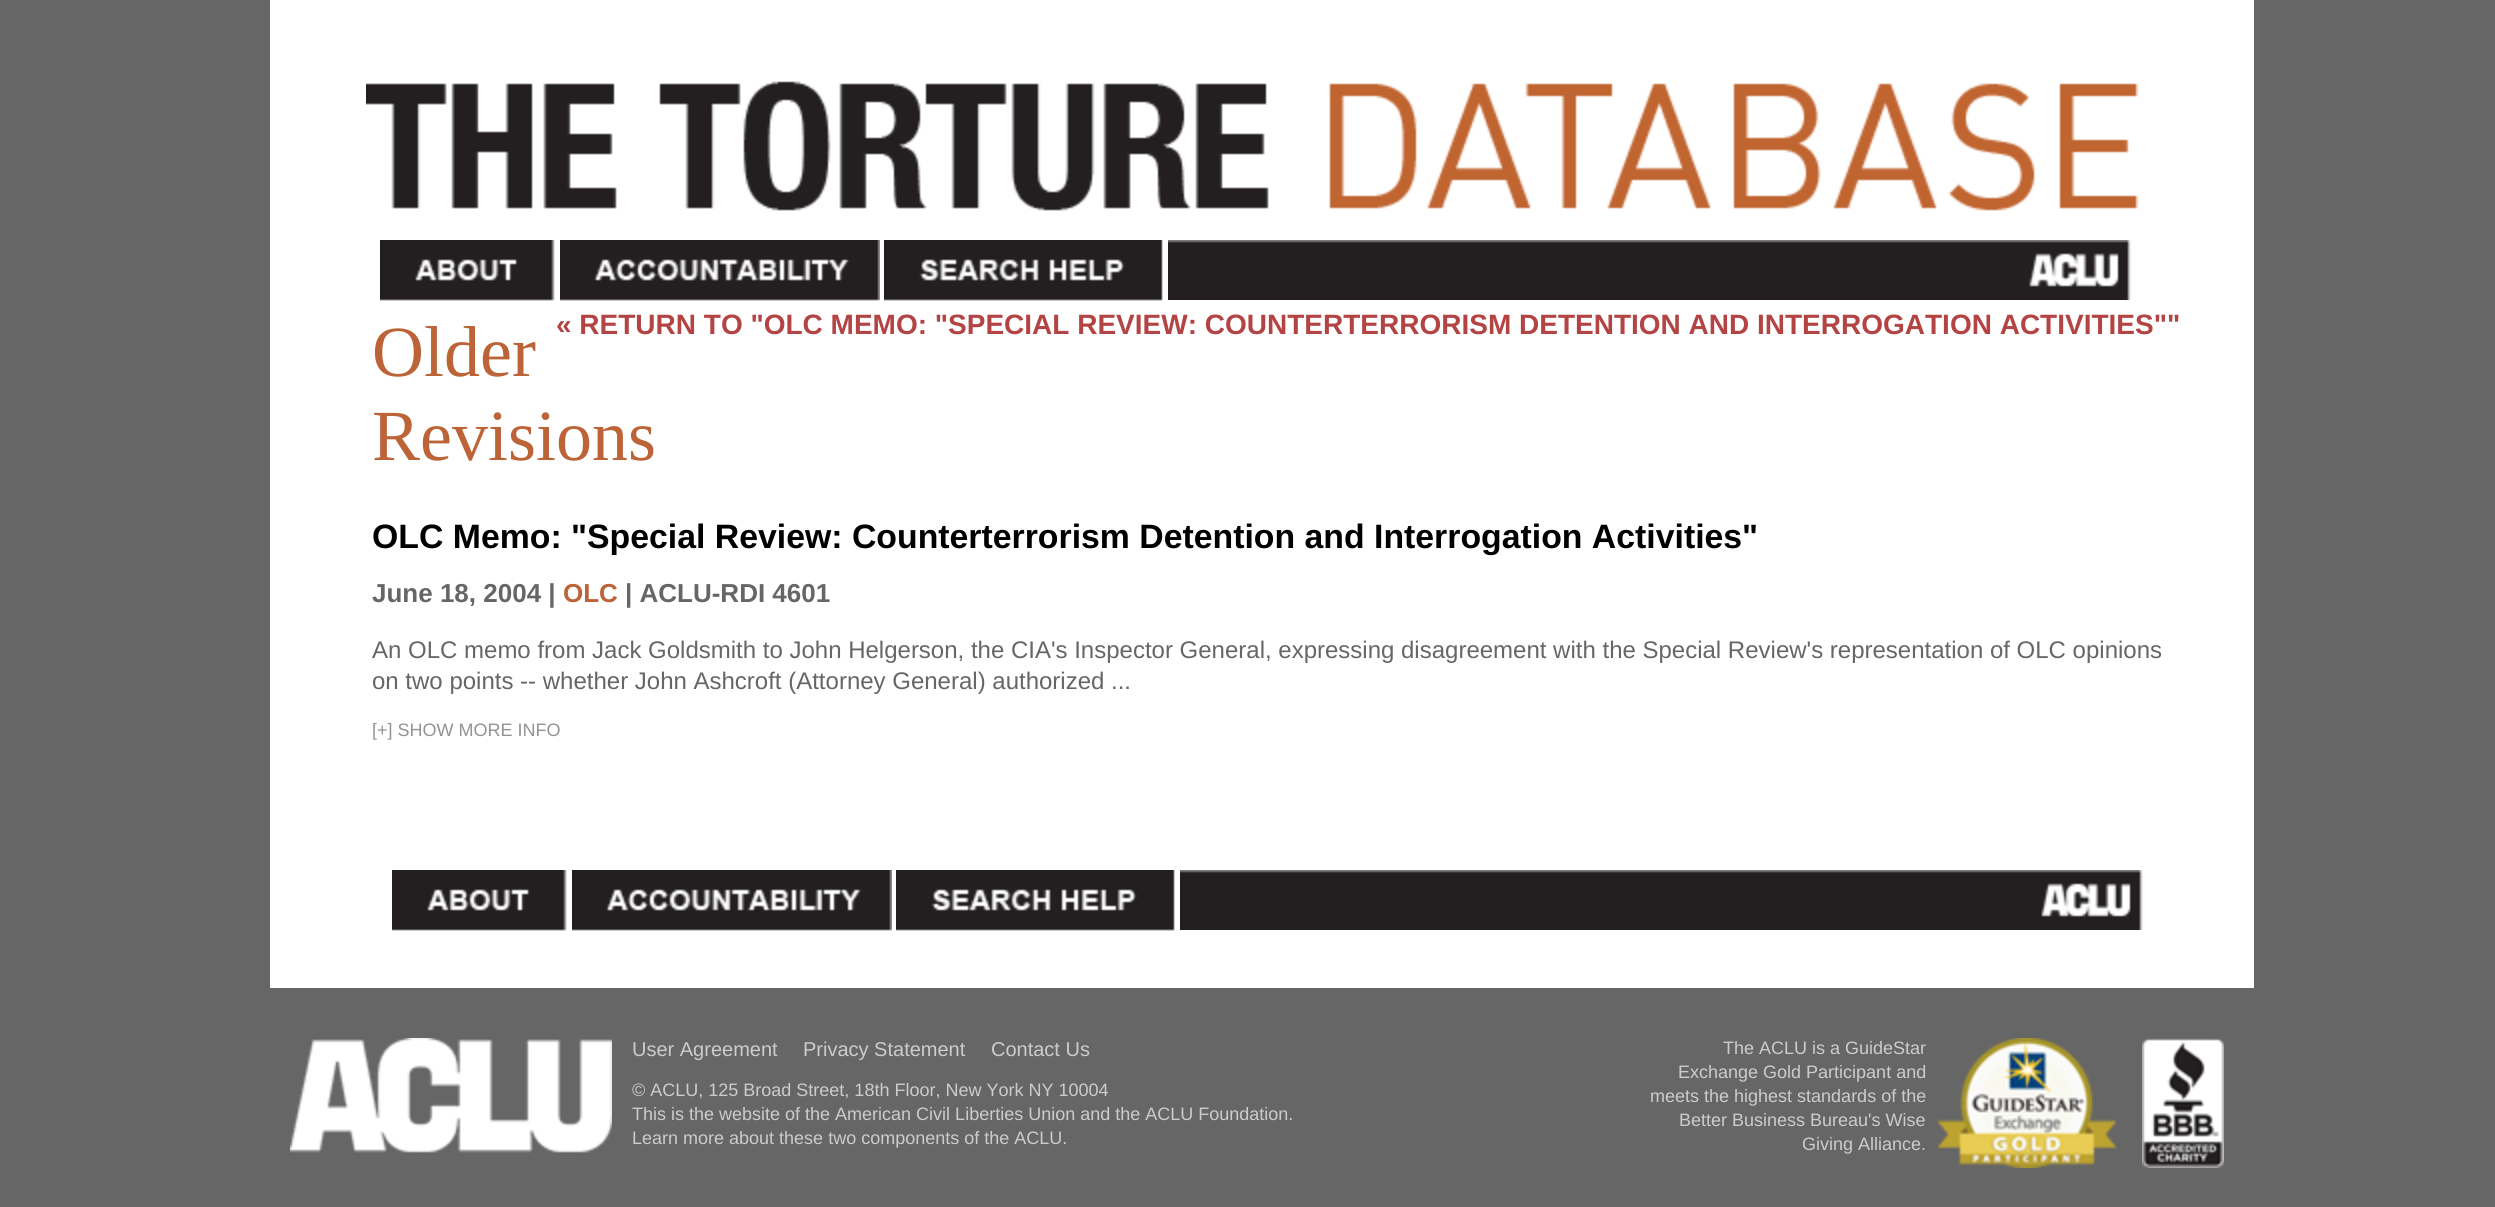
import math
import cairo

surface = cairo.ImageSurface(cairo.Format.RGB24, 2495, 1207)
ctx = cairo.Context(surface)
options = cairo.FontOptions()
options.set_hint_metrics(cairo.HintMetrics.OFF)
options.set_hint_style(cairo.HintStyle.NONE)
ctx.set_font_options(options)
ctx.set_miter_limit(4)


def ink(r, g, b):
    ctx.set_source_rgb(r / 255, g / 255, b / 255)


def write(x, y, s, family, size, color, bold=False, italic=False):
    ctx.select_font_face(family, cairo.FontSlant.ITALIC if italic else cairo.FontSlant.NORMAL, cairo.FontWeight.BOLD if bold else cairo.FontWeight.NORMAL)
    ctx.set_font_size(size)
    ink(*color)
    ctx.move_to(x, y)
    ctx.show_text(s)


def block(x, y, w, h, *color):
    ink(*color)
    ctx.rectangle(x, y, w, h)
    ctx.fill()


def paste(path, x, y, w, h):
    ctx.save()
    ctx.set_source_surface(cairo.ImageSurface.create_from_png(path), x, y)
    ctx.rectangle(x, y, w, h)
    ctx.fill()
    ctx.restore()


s1 = dict(family="Liberation Serif", size=72, color=(188, 99, 55))
s2 = dict(family="Liberation Sans", size=28, color=(180, 68, 68), bold=True)
s3 = dict(family="Liberation Sans", size=33.8, color=(0, 0, 0), bold=True)
s4 = dict(family="Liberation Sans", size=26, color=(102, 102, 100), bold=True)
s5 = dict(family="Liberation Sans", size=26, color=(188, 99, 55), bold=True)
s6 = dict(family="Liberation Sans", size=24, color=(102, 102, 100))
s7 = dict(family="Liberation Sans", size=18, color=(147, 147, 147))
s8 = dict(family="Liberation Sans", size=20, color=(204, 204, 204))
s9 = dict(family="Liberation Sans", size=18, color=(204, 204, 204))

ink(102, 102, 102)
ctx.paint()
block(270, 0, 1984, 988, 255, 255, 255)
paste("pic1.png", 366, 81, 1773, 130)
paste("pic2.png", 380, 240, 175, 61)
paste("pic3.png", 560, 240, 320, 61)
paste("pic4.png", 884, 240, 279, 61)
paste("pic5.png", 1168, 240, 963, 60)
write(372, 376, "Older", **s1)
write(372, 460, "Revisions", **s1)
write(556, 334, "« RETURN TO \"OLC MEMO: \"SPECIAL REVIEW: COUNTERTERRORISM DETENTION AND INTERROGATION ACTIVITIES\"\"", **s2)
write(372, 548, "OLC Memo: \"Special Review: Counterterrorism Detention and Interrogation Activities\"", **s3)
write(372, 602, "June 18, 2004 |", **s4)
write(563, 602, "OLC", **s5)
write(625, 602, "| ACLU-RDI 4601", **s4)
write(372, 658, "An OLC memo from Jack Goldsmith to John Helgerson, the CIA's Inspector General, expressing disagreement with the Special Review's representation of OLC opinions", **s6)
write(372, 689, "on two points -- whether John Ashcroft (Attorney General) authorized ...", **s6)
write(372, 736, "[+] SHOW MORE INFO", **s7)
paste("pic2.png", 392, 870, 175, 61)
paste("pic3.png", 572, 870, 320, 61)
paste("pic4.png", 896, 870, 279, 61)
paste("pic5.png", 1180, 870, 963, 60)
paste("pic6.png", 290, 1038, 322, 115)
write(632, 1056, "User Agreement", **s8)
write(803, 1056, "Privacy Statement", **s8)
write(991, 1056, "Contact Us", **s8)
write(1723, 1054, "The ACLU is a GuideStar", **s9)
write(1678, 1078, "Exchange Gold Participant and", **s9)
write(1650, 1102, "meets the highest standards of the", **s9)
write(1679, 1126, "Better Business Bureau's Wise", **s9)
write(1802, 1150, "Giving Alliance.", **s9)
paste("pic7.png", 1938, 1038, 179, 130)
paste("pic8.png", 2142, 1038, 82, 130)
write(632, 1096, "© ACLU, 125 Broad Street, 18th Floor, New York NY 10004", **s9)
write(632, 1120, "This is the website of the American Civil Liberties Union and the ACLU Foundation.", **s9)
write(632, 1144, "Learn more about these two components of the ACLU.", **s9)
surface.write_to_png("screenshot.png")
